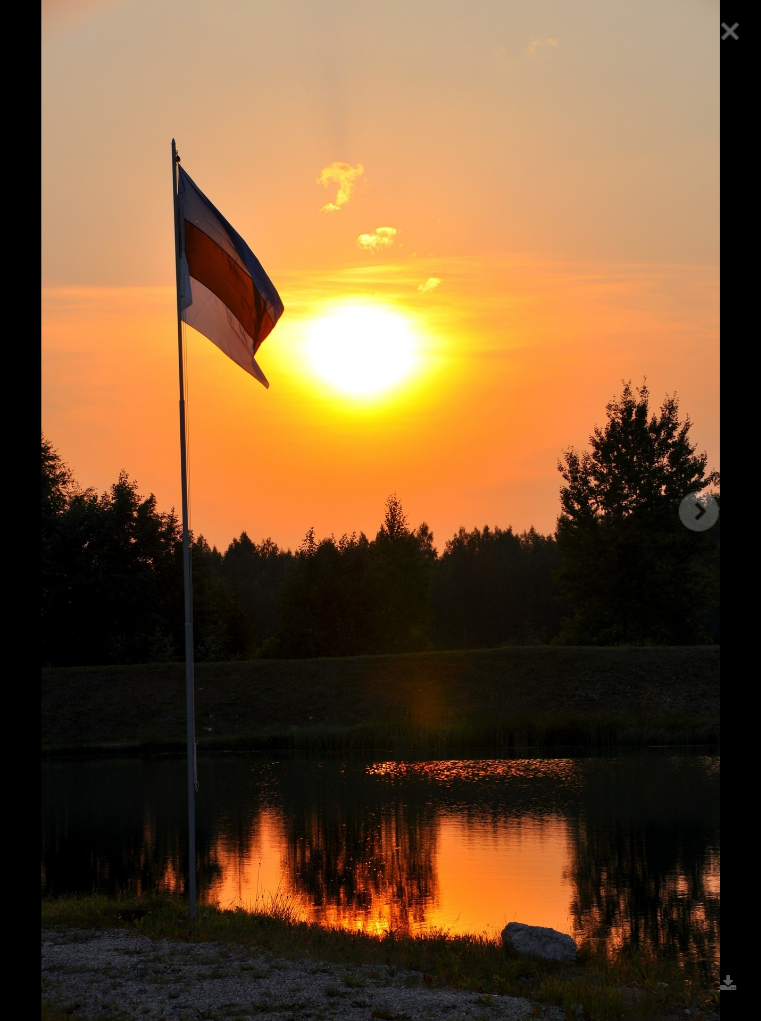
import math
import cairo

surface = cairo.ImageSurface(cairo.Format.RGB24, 761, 1021)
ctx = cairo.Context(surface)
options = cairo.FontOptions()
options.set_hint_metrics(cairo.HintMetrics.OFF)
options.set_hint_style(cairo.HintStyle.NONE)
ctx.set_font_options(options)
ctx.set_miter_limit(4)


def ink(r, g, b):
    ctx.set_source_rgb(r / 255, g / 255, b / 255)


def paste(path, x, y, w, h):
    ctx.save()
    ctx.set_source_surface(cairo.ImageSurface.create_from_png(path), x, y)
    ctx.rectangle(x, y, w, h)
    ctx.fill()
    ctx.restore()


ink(0, 0, 0)
ctx.paint()
paste("pic1.png", 41, 0, 679, 1021)
paste("pic2.png", 721, 22, 18, 19)
paste("pic3.png", 678, 489, 41, 43)
paste("pic4.png", 720, 975, 17, 15)
surface.write_to_png("screenshot.png")
